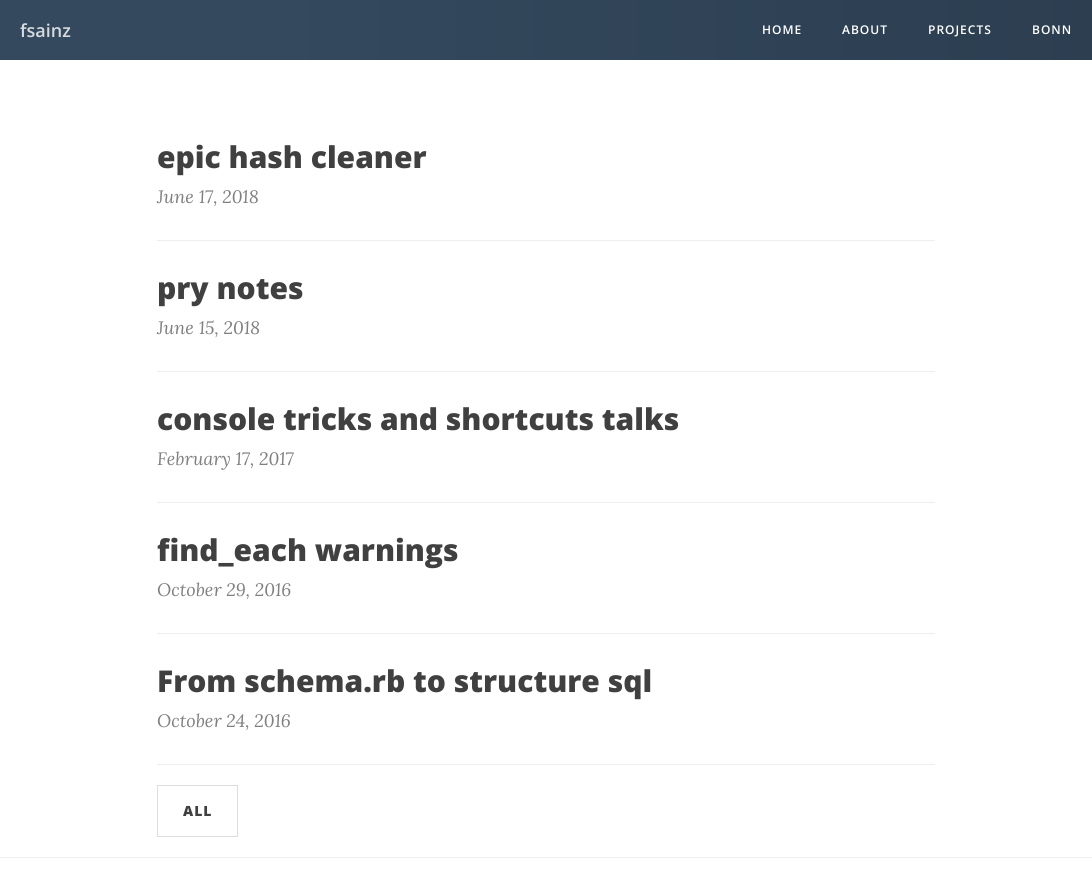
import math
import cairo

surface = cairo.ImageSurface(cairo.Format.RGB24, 1092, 872)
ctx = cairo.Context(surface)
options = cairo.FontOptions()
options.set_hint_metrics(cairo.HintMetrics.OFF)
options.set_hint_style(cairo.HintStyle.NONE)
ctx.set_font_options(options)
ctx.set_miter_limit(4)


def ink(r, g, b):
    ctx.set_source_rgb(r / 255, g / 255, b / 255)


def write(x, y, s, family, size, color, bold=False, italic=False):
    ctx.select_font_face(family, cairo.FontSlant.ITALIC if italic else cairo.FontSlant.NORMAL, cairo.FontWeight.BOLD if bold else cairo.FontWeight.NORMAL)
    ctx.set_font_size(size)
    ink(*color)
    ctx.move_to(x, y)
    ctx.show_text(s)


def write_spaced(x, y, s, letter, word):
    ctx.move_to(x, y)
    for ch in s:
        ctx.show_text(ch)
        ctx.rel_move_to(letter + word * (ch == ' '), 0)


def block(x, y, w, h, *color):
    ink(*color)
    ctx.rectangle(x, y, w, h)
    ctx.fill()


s1 = dict(family="Open Sans SemiBold", size=18, color=(214, 219, 223))
s2 = dict(family="Open Sans ExtraBold", size=30, color=(64, 64, 64))
s3 = dict(family="Lora", size=18, color=(128, 128, 128), italic=True)

ink(255, 255, 255)
ctx.paint()
gradient = cairo.LinearGradient(0, 30, 1092, 30)
gradient.add_color_stop_rgba(0.25, 0.204, 0.286, 0.369, 1)
gradient.add_color_stop_rgba(1, 0.173, 0.243, 0.314, 1)
ctx.set_source(gradient)
ctx.rectangle(0, 0, 1092, 60)
ctx.fill()
write(20, 37, "fsainz", **s1)
ctx.set_font_size(12)
ink(255, 255, 255)
write_spaced(762, 34, "HOME", 1, 0)
write_spaced(842, 34, "ABOUT", 1, 0)
write_spaced(928, 34, "PROJECTS", 1, 0)
write_spaced(1032, 34, "BONN", 1, 0)
write(157, 168, "epic hash cleaner", **s2)
write(157, 203, "June 17, 2018", **s3)
block(157, 240, 778, 1, 238, 238, 238)
write(157, 299, "pry notes", **s2)
write(157, 334, "June 15, 2018", **s3)
block(157, 371, 778, 1, 238, 238, 238)
write(157, 430, "console tricks and shortcuts talks", **s2)
write(157, 465, "February 17, 2017", **s3)
block(157, 502, 778, 1, 238, 238, 238)
write(157, 561, "find_each warnings", **s2)
write(157, 596, "October 29, 2016", **s3)
block(157, 633, 778, 1, 238, 238, 238)
write(157, 692, "From schema.rb to structure sql", **s2)
write(157, 727, "October 24, 2016", **s3)
block(157, 764, 778, 1, 238, 238, 238)
ctx.rectangle(157.5, 785.5, 80, 51)
ink(221, 221, 221)
ctx.set_line_width(1)
ctx.stroke()
ctx.select_font_face("Open Sans ExtraBold")
ctx.set_font_size(14)
ink(64, 64, 64)
write_spaced(183, 816, "ALL", 1, 0)
block(0, 857, 1092, 1, 238, 238, 238)
surface.write_to_png("screenshot.png")
